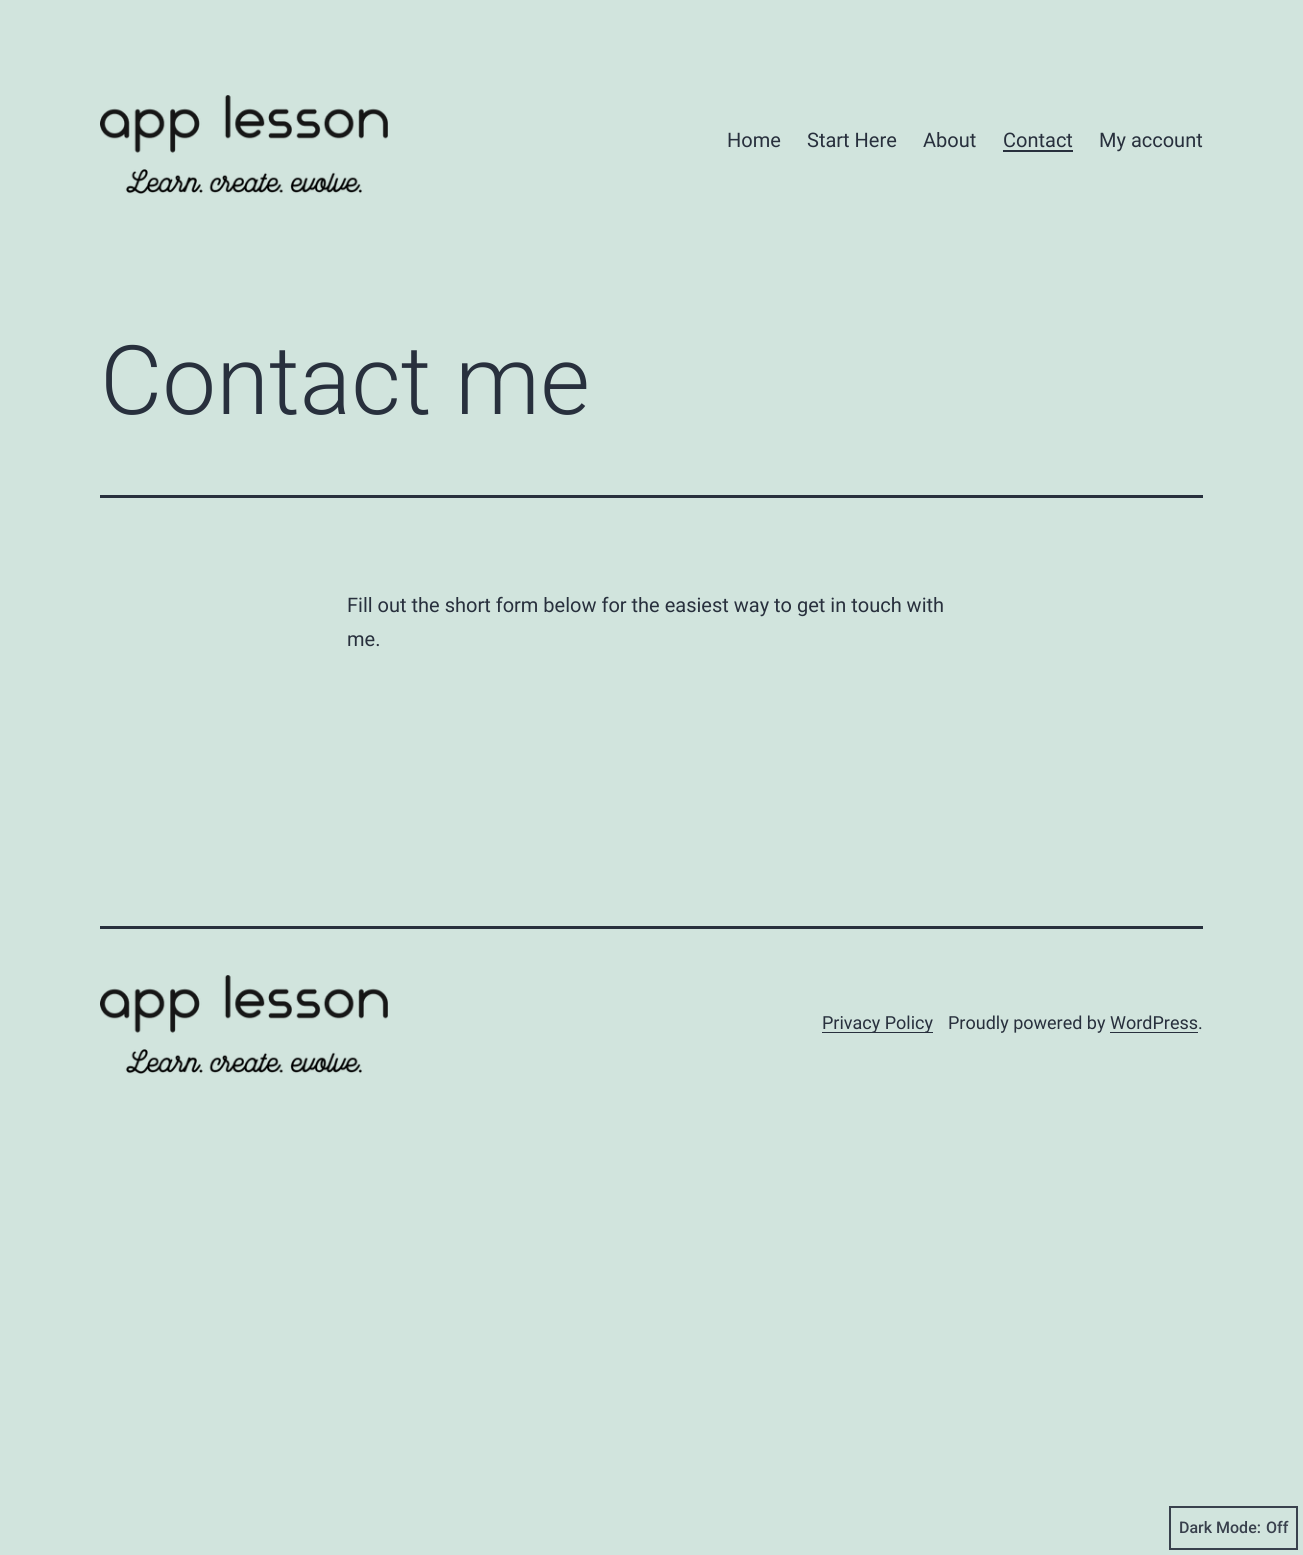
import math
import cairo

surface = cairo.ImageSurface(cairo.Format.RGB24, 1303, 1555)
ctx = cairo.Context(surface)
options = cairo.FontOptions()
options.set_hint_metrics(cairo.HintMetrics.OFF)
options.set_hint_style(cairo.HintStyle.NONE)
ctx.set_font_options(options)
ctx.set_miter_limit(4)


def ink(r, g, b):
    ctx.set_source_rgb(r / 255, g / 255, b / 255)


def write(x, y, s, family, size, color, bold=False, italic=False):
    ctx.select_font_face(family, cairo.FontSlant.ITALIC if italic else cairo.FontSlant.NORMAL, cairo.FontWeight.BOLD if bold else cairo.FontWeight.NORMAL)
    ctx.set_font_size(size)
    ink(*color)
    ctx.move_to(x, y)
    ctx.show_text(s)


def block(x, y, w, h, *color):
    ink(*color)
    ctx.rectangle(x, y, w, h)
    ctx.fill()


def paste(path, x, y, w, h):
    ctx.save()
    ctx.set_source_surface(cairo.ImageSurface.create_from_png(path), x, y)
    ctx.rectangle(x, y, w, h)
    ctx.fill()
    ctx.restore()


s1 = dict(family="Roboto", size=20, color=(40, 48, 61))
s2 = dict(family="Roboto Light", size=96, color=(40, 48, 61))
s3 = dict(family="Roboto", size=18, color=(40, 48, 61))
s4 = dict(family="Roboto Medium", size=16, color=(57, 65, 77))

ink(209, 228, 221)
ctx.paint()
paste("pic1.png", 100, 95, 288, 99)
write(727, 147, "Home", **s1)
write(807, 147, "Start Here", **s1)
write(923, 147, "About", **s1)
write(1003, 147, "Contact", **s1)
block(1003, 150, 70, 2, 40, 48, 61)
write(1099, 147, "My account", **s1)
block(100, 495, 1103, 3, 40, 48, 61)
write(100, 414, "Contact me", **s2)
write(347, 612, "Fill out the short form below for the easiest way to get in touch with", **s1)
write(347, 646, "me.", **s1)
block(100, 926, 1103, 3, 40, 48, 61)
paste("pic1.png", 100, 975, 288, 99)
block(822, 1032, 111, 1, 40, 48, 61)
write(822, 1029, "Privacy Policy", **s3)
write(948, 1029, "Proudly powered by WordPress.", **s3)
block(1110, 1032, 88, 1, 40, 48, 61)
ctx.rectangle(1170, 1507, 127, 42)
ink(57, 65, 77)
ctx.stroke()
write(1179, 1533, "Dark Mode:", **s4)
write(1266, 1533, "Off", **s4)
surface.write_to_png("screenshot.png")
